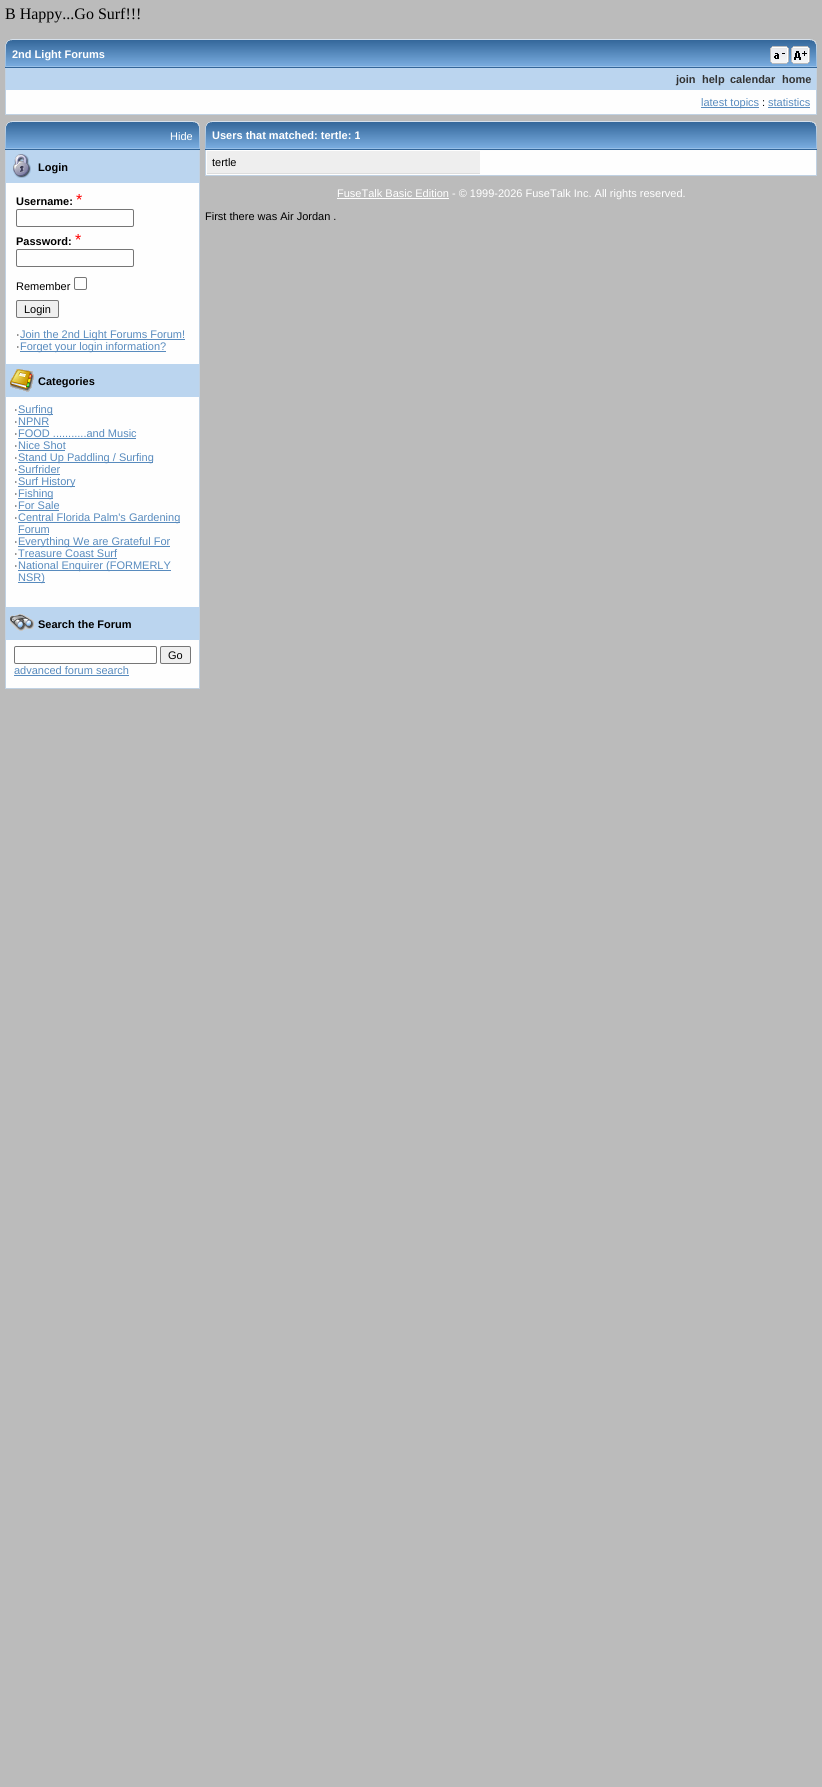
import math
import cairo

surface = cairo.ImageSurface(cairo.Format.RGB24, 822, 1787)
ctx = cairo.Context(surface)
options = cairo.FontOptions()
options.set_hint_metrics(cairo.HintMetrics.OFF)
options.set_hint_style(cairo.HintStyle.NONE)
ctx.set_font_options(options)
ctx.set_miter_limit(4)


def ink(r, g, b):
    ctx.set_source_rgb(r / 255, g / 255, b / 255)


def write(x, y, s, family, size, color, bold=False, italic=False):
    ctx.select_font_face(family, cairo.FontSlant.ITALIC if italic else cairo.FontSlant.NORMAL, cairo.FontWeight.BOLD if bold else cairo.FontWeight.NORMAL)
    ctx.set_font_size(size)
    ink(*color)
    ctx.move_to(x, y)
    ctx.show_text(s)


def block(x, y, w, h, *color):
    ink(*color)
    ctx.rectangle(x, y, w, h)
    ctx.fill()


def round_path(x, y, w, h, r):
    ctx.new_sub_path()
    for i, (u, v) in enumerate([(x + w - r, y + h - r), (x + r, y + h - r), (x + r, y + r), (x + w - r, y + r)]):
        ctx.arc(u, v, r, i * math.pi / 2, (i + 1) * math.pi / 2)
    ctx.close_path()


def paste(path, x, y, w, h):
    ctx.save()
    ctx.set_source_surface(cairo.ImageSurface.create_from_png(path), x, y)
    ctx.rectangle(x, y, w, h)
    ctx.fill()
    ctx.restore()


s1 = dict(family="Liberation Serif", size=16, color=(0, 0, 0))
s2 = dict(family="Liberation Sans", size=11, color=(255, 255, 255), bold=True)
s3 = dict(family="Liberation Sans", size=11, color=(51, 51, 51), bold=True)
s4 = dict(family="Liberation Sans", size=11, color=(88, 139, 190))
s5 = dict(family="Liberation Sans", size=11, color=(0, 0, 0))
s6 = dict(family="Liberation Sans", size=11, color=(255, 255, 255))
s7 = dict(family="Liberation Sans", size=11, color=(0, 0, 0), bold=True)
s8 = dict(family="Liberation Sans", size=16, color=(255, 0, 0))

ink(187, 187, 187)
ctx.paint()
write(5, 19, "B Happy...Go Surf!!!", **s1)
paste("pic1.png", 5, 39, 7, 29)
paste("pic2.png", 12, 39, 756, 29)
write(12, 58, "2nd Light Forums", **s2)
paste("pic3.png", 768, 39, 21, 29)
paste("pic4.png", 770, 46, 19, 18)
paste("pic3.png", 789, 39, 21, 29)
paste("pic5.png", 791, 46, 19, 18)
paste("pic6.png", 810, 39, 7, 29)
block(6, 90, 810, 24, 254, 254, 254)
block(816, 68, 1, 47, 192, 209, 226)
block(5, 114, 812, 1, 192, 209, 226)
block(5, 68, 1, 47, 192, 209, 226)
block(6, 68, 810, 22, 187, 213, 239)
write(676, 83, "join", **s3)
write(702, 83, "help", **s3)
write(730, 83, "calendar", **s3)
write(782, 83, "home", **s3)
block(701, 107, 58, 1, 88, 139, 190)
write(701, 106, "latest topics", **s4)
write(762, 106, ":", **s5)
write(768, 106, "statistics", **s4)
block(768, 107, 42, 1, 88, 139, 190)
paste("pic1.png", 5, 121, 7, 29)
paste("pic7.png", 12, 121, 110, 29)
paste("pic8.png", 122, 121, 71, 29)
write(170, 140, "Hide", **s6)
paste("pic6.png", 193, 121, 7, 29)
block(6, 183, 193, 505, 254, 254, 254)
block(199, 150, 1, 539, 192, 209, 226)
block(5, 688, 195, 1, 192, 209, 226)
block(5, 150, 1, 539, 192, 209, 226)
block(6, 150, 193, 33, 187, 213, 239)
paste("pic9.png", 13, 154, 18, 24)
write(38, 171, "Login", **s7)
write(16, 205, "Username:", **s7)
write(76, 205, "*", **s8)
round_path(16.5, 209.5, 117, 17, 1.5)
ink(118, 118, 118)
ctx.set_line_width(1)
ctx.stroke()
write(16, 245, "Password:", **s7)
write(75, 245, "*", **s8)
round_path(16.5, 249.5, 117, 17, 1.5)
ink(118, 118, 118)
ctx.stroke()
write(16, 290, "Remember", **s5)
round_path(74.5, 277.5, 12, 12, 1.5)
ink(118, 118, 118)
ctx.stroke()
ink(239, 239, 239)
round_path(16.5, 300.5, 42, 17, 1.5)
ctx.fill_preserve()
ink(118, 118, 118)
ctx.stroke()
write(24, 313, "Login", **s5)
write(16, 338, "·", **s5)
block(20, 339, 165, 1, 88, 139, 190)
write(20, 338, "Join the 2nd Light Forums Forum!", **s4)
write(16, 350, "·", **s5)
block(20, 351, 146, 1, 88, 139, 190)
write(20, 350, "Forget your login information?", **s4)
block(6, 364, 193, 33, 187, 213, 239)
paste("pic10.png", 10, 369, 24, 23)
write(38, 385, "Categories", **s7)
write(14, 413, "·", **s5)
block(18, 414, 35, 1, 88, 139, 190)
write(18, 413, "Surfing", **s4)
write(14, 425, "·", **s5)
write(18, 425, "NPNR", **s4)
block(18, 426, 31, 1, 88, 139, 190)
write(14, 437, "·", **s5)
write(18, 437, "FOOD ...........and Music", **s4)
block(18, 438, 118, 1, 88, 139, 190)
write(14, 449, "·", **s5)
write(18, 449, "Nice Shot", **s4)
block(18, 450, 47, 1, 88, 139, 190)
write(14, 461, "·", **s5)
block(18, 462, 135, 1, 88, 139, 190)
write(18, 461, "Stand Up Paddling / Surfing", **s4)
write(14, 473, "·", **s5)
write(18, 473, "Surfrider", **s4)
block(18, 474, 42, 1, 88, 139, 190)
write(14, 485, "·", **s5)
block(18, 486, 57, 1, 88, 139, 190)
write(18, 485, "Surf History", **s4)
write(14, 497, "·", **s5)
block(18, 498, 35, 1, 88, 139, 190)
write(18, 497, "Fishing", **s4)
write(14, 509, "·", **s5)
write(18, 509, "For Sale", **s4)
block(18, 510, 41, 1, 88, 139, 190)
write(14, 521, "·", **s5)
block(18, 522, 162, 1, 88, 139, 190)
write(18, 521, "Central Florida Palm's Gardening", **s4)
write(18, 533, "Forum", **s4)
block(18, 534, 31, 1, 88, 139, 190)
write(14, 545, "·", **s5)
block(18, 546, 152, 1, 88, 139, 190)
write(18, 545, "Everything We are Grateful For", **s4)
write(14, 557, "·", **s5)
write(18, 557, "Treasure Coast Surf", **s4)
block(18, 558, 99, 1, 88, 139, 190)
write(14, 569, "·", **s5)
block(18, 570, 153, 1, 88, 139, 190)
write(18, 569, "National Enquirer (FORMERLY", **s4)
block(18, 582, 27, 1, 88, 139, 190)
write(18, 581, "NSR)", **s4)
block(6, 607, 193, 33, 187, 213, 239)
paste("pic11.png", 10, 614, 24, 17)
write(38, 628, "Search the Forum", **s7)
round_path(14.5, 646.5, 142, 17, 1.5)
ink(118, 118, 118)
ctx.stroke()
ink(239, 239, 239)
round_path(160.5, 646.5, 30, 17, 1.5)
ctx.fill_preserve()
ink(118, 118, 118)
ctx.stroke()
write(168, 659, "Go", **s5)
write(14, 674, "advanced forum search", **s4)
block(14, 675, 115, 1, 88, 139, 190)
paste("pic12.png", 212, 121, 598, 29)
paste("pic1.png", 205, 121, 7, 29)
write(212, 139, "Users that matched: tertle: 1", **s2)
paste("pic6.png", 810, 121, 7, 29)
block(206, 150, 610, 25, 254, 254, 254)
block(816, 150, 1, 26, 192, 209, 226)
block(205, 175, 612, 1, 192, 209, 226)
block(205, 150, 1, 26, 192, 209, 226)
block(207, 151, 273, 22, 238, 238, 238)
block(207, 173, 273, 1, 221, 221, 221)
write(212, 166, "tertle", **s5)
block(337, 198, 112, 1, 255, 255, 255)
write(337, 197, "FuseTalk Basic Edition - © 1999-2026 FuseTalk Inc. All rights reserved.", **s6)
write(205, 220, "First there was Air Jordan .", **s5)
surface.write_to_png("screenshot.png")
